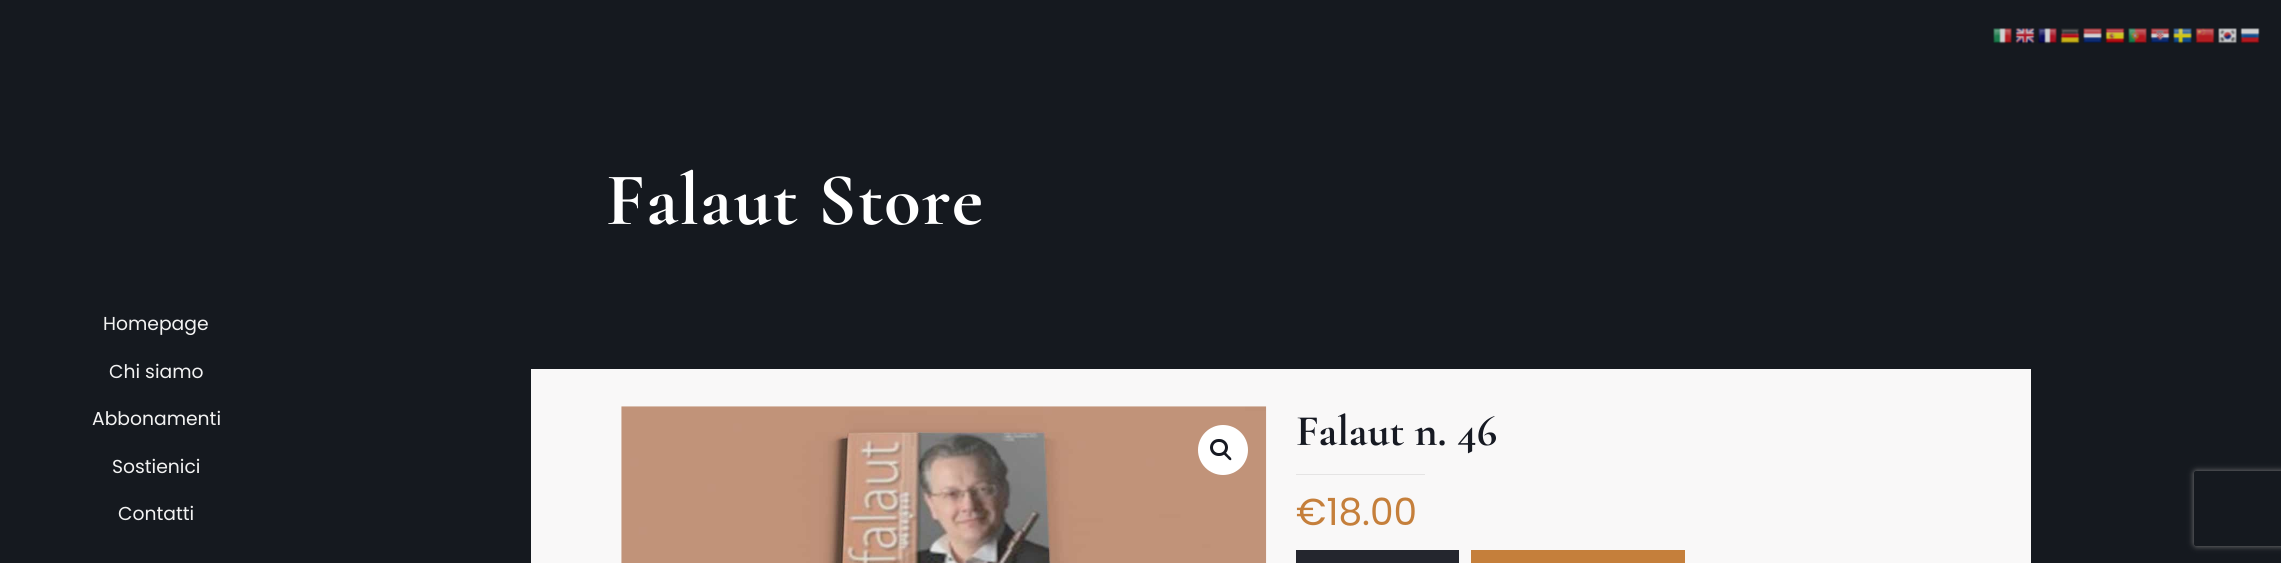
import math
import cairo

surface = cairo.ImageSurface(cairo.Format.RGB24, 2281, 563)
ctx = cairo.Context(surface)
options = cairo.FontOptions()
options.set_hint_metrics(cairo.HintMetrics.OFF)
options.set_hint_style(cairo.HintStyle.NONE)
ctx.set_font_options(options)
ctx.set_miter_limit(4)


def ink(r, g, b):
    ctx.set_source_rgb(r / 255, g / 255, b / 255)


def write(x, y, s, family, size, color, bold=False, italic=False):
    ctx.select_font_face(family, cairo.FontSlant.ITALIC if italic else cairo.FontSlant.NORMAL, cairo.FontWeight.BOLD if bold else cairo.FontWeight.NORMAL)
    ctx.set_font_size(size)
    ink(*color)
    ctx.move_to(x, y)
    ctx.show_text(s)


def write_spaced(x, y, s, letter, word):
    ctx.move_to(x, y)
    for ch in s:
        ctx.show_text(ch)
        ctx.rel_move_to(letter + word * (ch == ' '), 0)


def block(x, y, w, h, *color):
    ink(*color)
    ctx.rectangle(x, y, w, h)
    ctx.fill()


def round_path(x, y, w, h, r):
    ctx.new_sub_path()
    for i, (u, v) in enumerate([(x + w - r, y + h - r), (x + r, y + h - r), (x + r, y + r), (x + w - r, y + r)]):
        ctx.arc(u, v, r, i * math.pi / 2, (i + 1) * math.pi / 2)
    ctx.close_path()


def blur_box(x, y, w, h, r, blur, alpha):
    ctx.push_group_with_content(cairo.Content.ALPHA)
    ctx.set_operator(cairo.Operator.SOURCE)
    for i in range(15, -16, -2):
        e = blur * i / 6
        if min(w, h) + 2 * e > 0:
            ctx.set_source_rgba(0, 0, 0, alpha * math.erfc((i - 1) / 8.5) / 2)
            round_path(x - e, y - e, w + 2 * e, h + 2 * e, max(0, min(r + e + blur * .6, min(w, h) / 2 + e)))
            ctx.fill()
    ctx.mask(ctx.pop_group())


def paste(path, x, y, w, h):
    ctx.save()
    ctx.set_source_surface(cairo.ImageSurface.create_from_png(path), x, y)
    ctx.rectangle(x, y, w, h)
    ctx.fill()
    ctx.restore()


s1 = dict(family="Poppins", size=18.75, color=(242, 242, 242))
s2 = dict(family="Cormorant Garamond", size=43.75, color=(22, 25, 34), bold=True)
s3 = dict(family="Poppins", size=37.5, color=(197, 127, 59))

ink(21, 25, 31)
ctx.paint()
paste("pic1.png", 1993, 28, 19, 16)
paste("pic2.png", 2015, 28, 20, 16)
paste("pic3.png", 2038, 28, 19, 16)
paste("pic4.png", 2060, 28, 20, 16)
paste("pic5.png", 2083, 28, 19, 15)
paste("pic6.png", 2105, 28, 20, 16)
paste("pic7.png", 2128, 28, 19, 16)
paste("pic8.png", 2150, 28, 20, 15)
paste("pic9.png", 2173, 28, 19, 16)
paste("pic10.png", 2195, 28, 20, 16)
paste("pic11.png", 2218, 28, 19, 16)
paste("pic12.png", 2240, 28, 20, 16)
write(103, 330, "Homepage", **s1)
write(109, 378, "Chi siamo", **s1)
write(92, 425, "Abbonamenti", **s1)
write(112, 473, "Sostienici", **s1)
write(118, 520, "Contatti", **s1)
ctx.select_font_face("Cormorant Garamond", cairo.FontSlant.NORMAL, cairo.FontWeight.BOLD)
ctx.set_font_size(75)
ink(255, 255, 255)
write_spaced(606, 224, "Falaut Store", 1.25, 0)
block(531, 369, 1500, 194, 249, 248, 248)
paste("pic13.png", 621, 406, 646, 157)
ink(255, 255, 255)
ctx.arc(1223, 450, 25, 0, 2 * math.pi)
ctx.fill()
round_path(1211.5, 440.5, 15, 14, 7)
ink(22, 25, 34)
ctx.set_line_width(3)
ctx.stroke()
ctx.new_path()
ctx.move_to(1224, 452.5)
ctx.curve_to(1225.5, 451.5, 1227.5, 454.5, 1228.5, 455.5)
ctx.curve_to(1229, 456, 1232.5, 458.5, 1231, 460)
ctx.curve_to(1229.5, 461, 1227.5, 458, 1226.5, 457)
ctx.curve_to(1226, 456.5, 1222.5, 454, 1224, 452.5)
ctx.close_path()
ctx.fill()
write(1296, 445, "Falaut n. 46", **s2)
block(1296, 474, 129, 1, 229, 228, 228)
write(1296, 525, "€18.00", **s3)
block(1296, 550, 163, 13, 36, 38, 46)
block(1471, 550, 214, 13, 197, 127, 59)
ctx.save()
ctx.set_fill_rule(cairo.FillRule.EVEN_ODD)
ctx.new_path()
ctx.move_to(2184, 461)
ctx.line_to(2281, 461)
ctx.line_to(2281, 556)
ctx.line_to(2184, 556)
ctx.close_path()
ctx.move_to(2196.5, 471)
ctx.line_to(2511.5, 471)
ctx.curve_to(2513, 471, 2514, 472, 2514, 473.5)
ctx.line_to(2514, 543.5)
ctx.curve_to(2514, 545, 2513, 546, 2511.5, 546)
ctx.line_to(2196.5, 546)
ctx.curve_to(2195, 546, 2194, 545, 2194, 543.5)
ctx.line_to(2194, 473.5)
ctx.curve_to(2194, 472, 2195, 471, 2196.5, 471)
ctx.close_path()
ctx.clip()
ink(128, 128, 128)
blur_box(2194, 471, 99, 75, 2.5, 3, 1)
ctx.restore()
surface.write_to_png("screenshot.png")
